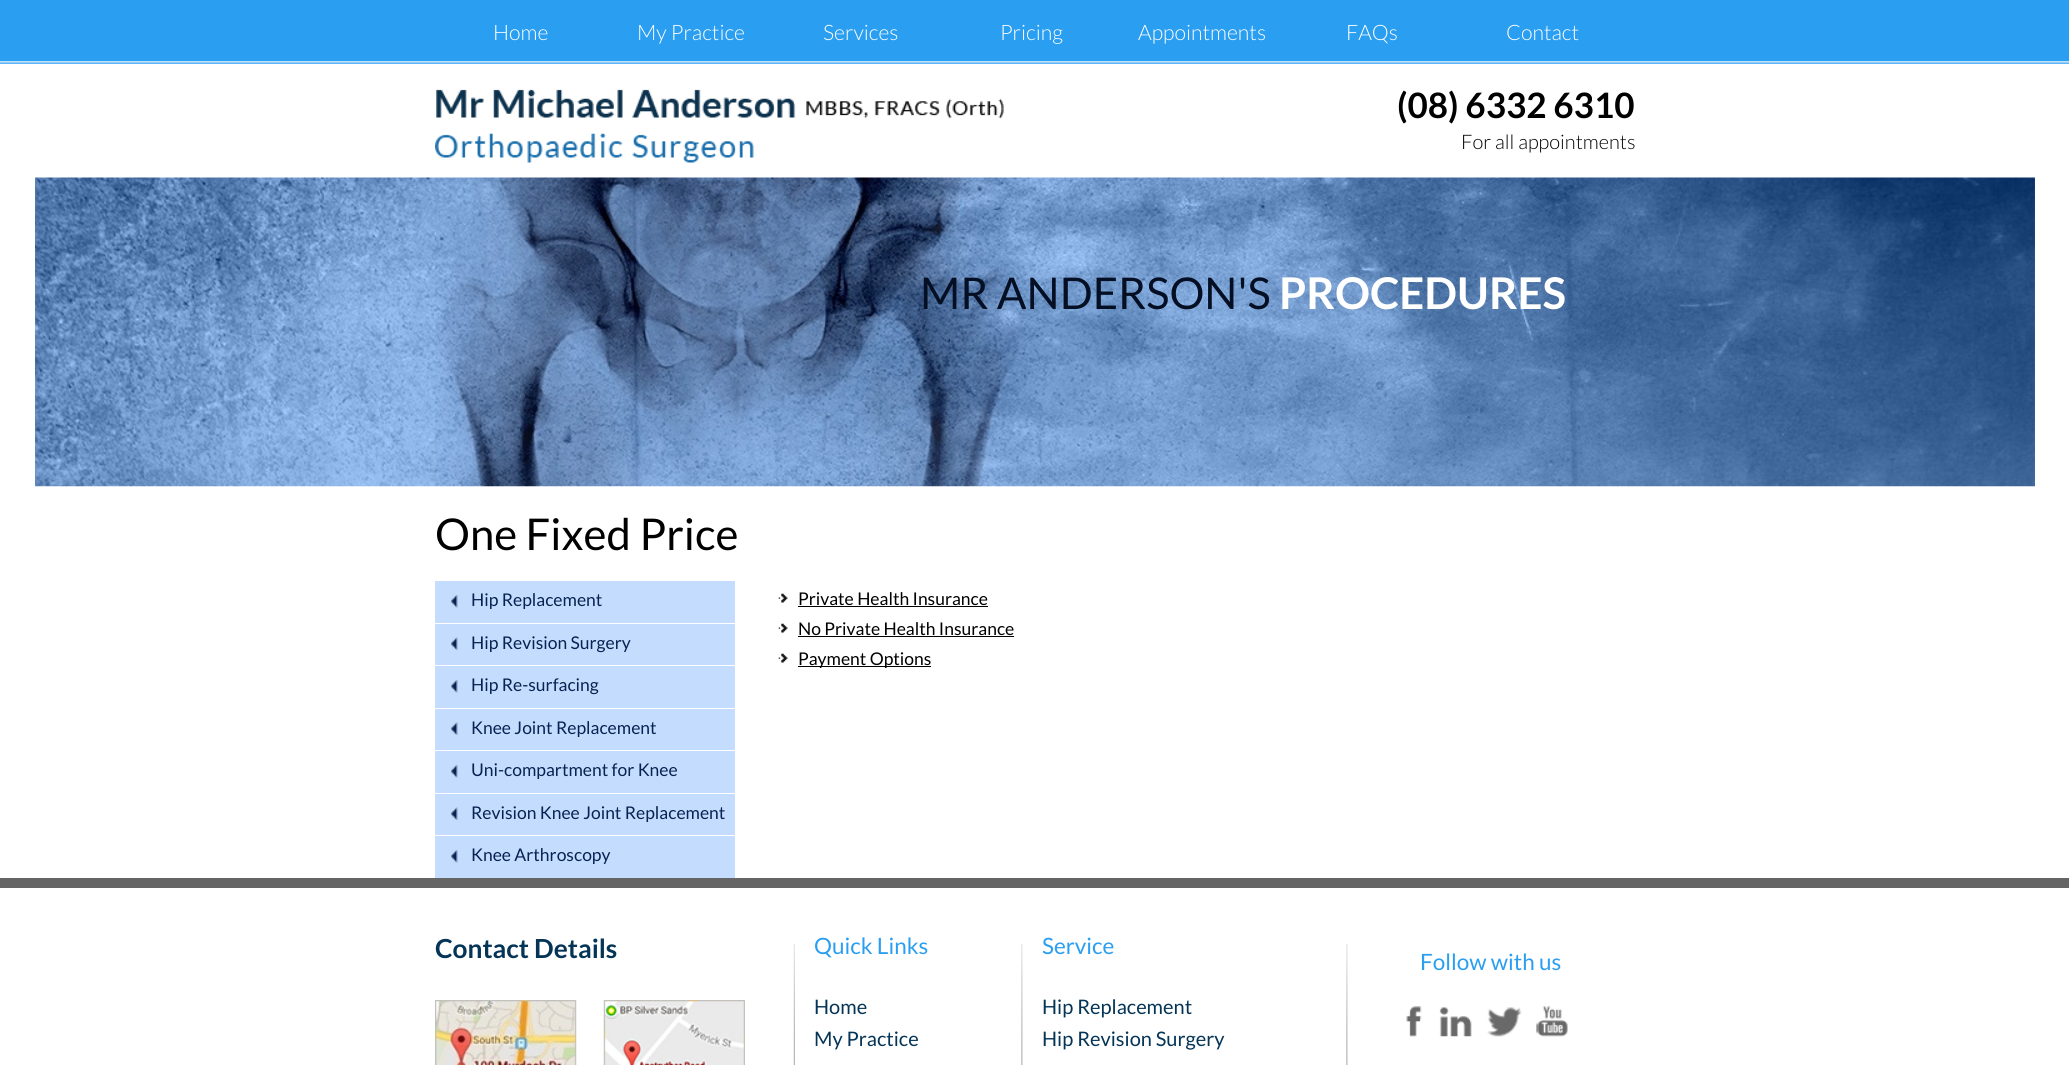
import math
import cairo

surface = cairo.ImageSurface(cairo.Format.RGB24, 2069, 1065)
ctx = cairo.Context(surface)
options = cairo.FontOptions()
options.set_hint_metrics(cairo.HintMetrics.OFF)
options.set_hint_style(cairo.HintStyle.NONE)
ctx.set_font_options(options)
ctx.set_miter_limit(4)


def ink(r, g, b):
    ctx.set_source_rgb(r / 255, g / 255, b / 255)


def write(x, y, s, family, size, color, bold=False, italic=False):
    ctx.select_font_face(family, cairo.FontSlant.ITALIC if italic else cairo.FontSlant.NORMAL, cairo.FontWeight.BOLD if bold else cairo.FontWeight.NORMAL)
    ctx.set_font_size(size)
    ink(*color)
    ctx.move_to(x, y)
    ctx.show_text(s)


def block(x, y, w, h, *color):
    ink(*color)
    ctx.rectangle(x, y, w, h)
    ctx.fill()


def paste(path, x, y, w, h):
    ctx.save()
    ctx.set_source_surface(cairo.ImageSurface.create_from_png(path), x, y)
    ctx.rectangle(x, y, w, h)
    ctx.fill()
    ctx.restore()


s1 = dict(family="Lato Light", size=21.25, color=(255, 255, 255))
s2 = dict(family="Lato", size=35, color=(0, 0, 0), bold=True)
s3 = dict(family="Lato Light", size=20, color=(0, 0, 0))
s4 = dict(family="Lato", size=43.75, color=(4, 15, 35))
s5 = dict(family="Lato", size=43.75, color=(255, 255, 255), bold=True)
s6 = dict(family="Lato", size=43.75, color=(0, 0, 0))
s7 = dict(family="Lato", size=17.5, color=(8, 34, 81))
s8 = dict(family="Lato", size=17.5, color=(0, 0, 0))
s9 = dict(family="Lato", size=26.25, color=(4, 52, 86), bold=True)
s10 = dict(family="Lato", size=22.5, color=(42, 158, 241))
s11 = dict(family="Lato", size=20, color=(4, 52, 86))

ink(255, 255, 255)
ctx.paint()
paste("pic1.png", 0, 0, 2069, 64)
write(493, 40, "Home", **s1)
write(637, 40, "My Practice", **s1)
write(823, 40, "Services", **s1)
write(1000, 40, "Pricing", **s1)
write(1138, 40, "Appointments", **s1)
write(1346, 40, "FAQs", **s1)
write(1506, 40, "Contact", **s1)
paste("pic2.png", 435, 89, 569, 74)
write(1397, 118, "(08) 6332 6310", **s2)
write(1461, 149, "For all appointments", **s3)
paste("pic3.png", 435, 177, 1200, 310)
paste("pic4.png", 35, 177, 400, 310)
write(920, 309, "MR ANDERSON'S", **s4)
write(1279, 309, "PROCEDURES", **s5)
paste("pic5.png", 1635, 177, 400, 310)
write(435, 550, "One Fixed Price", **s6)
block(435, 581, 300, 42, 196, 221, 255)
paste("pic6.png", 451, 595, 7, 13)
write(471, 606, "Hip Replacement", **s7)
block(435, 624, 300, 41, 196, 221, 255)
paste("pic7.png", 451, 637, 7, 13)
write(471, 649, "Hip Revision Surgery", **s7)
block(435, 666, 300, 42, 196, 221, 255)
paste("pic6.png", 451, 680, 7, 13)
write(471, 691, "Hip Re-surfacing", **s7)
block(435, 709, 300, 41, 196, 221, 255)
paste("pic7.png", 451, 722, 7, 13)
write(471, 734, "Knee Joint Replacement", **s7)
block(435, 751, 300, 42, 196, 221, 255)
paste("pic6.png", 451, 765, 7, 13)
write(471, 776, "Uni-compartment for Knee", **s7)
block(435, 794, 300, 41, 196, 221, 255)
paste("pic7.png", 451, 807, 7, 13)
write(471, 819, "Revision Knee Joint Replacement", **s7)
block(435, 836, 300, 42, 196, 221, 255)
paste("pic6.png", 451, 850, 7, 13)
write(471, 861, "Knee Arthroscopy", **s7)
paste("pic8.png", 778, 593, 10, 10)
write(798, 605, "Private Health Insurance", **s8)
block(798, 606, 190, 1, 0, 0, 0)
paste("pic8.png", 778, 623, 10, 10)
write(798, 635, "No Private Health Insurance", **s8)
block(798, 636, 216, 1, 0, 0, 0)
paste("pic8.png", 778, 653, 10, 10)
block(798, 666, 133, 1, 0, 0, 0)
write(798, 665, "Payment Options", **s8)
block(0, 878, 2069, 10, 101, 101, 101)
paste("pic9.png", 793, 943, 2, 122)
write(435, 958, "Contact Details", **s9)
paste("pic10.png", 435, 1000, 142, 65)
paste("pic11.png", 603, 1000, 142, 65)
paste("pic12.png", 1021, 944, 2, 121)
write(814, 954, "Quick Links", **s10)
write(814, 1014, "Home", **s11)
write(814, 1046, "My Practice", **s11)
paste("pic12.png", 1346, 944, 2, 121)
write(1042, 954, "Service", **s10)
write(1042, 1014, "Hip Replacement", **s11)
write(1042, 1046, "Hip Revision Surgery", **s11)
write(1420, 970, "Follow with us", **s10)
paste("pic13.png", 1406, 1006, 16, 31)
paste("pic14.png", 1439, 1007, 33, 30)
paste("pic15.png", 1487, 1007, 35, 30)
paste("pic16.png", 1536, 1006, 32, 31)
surface.write_to_png("screenshot.png")
